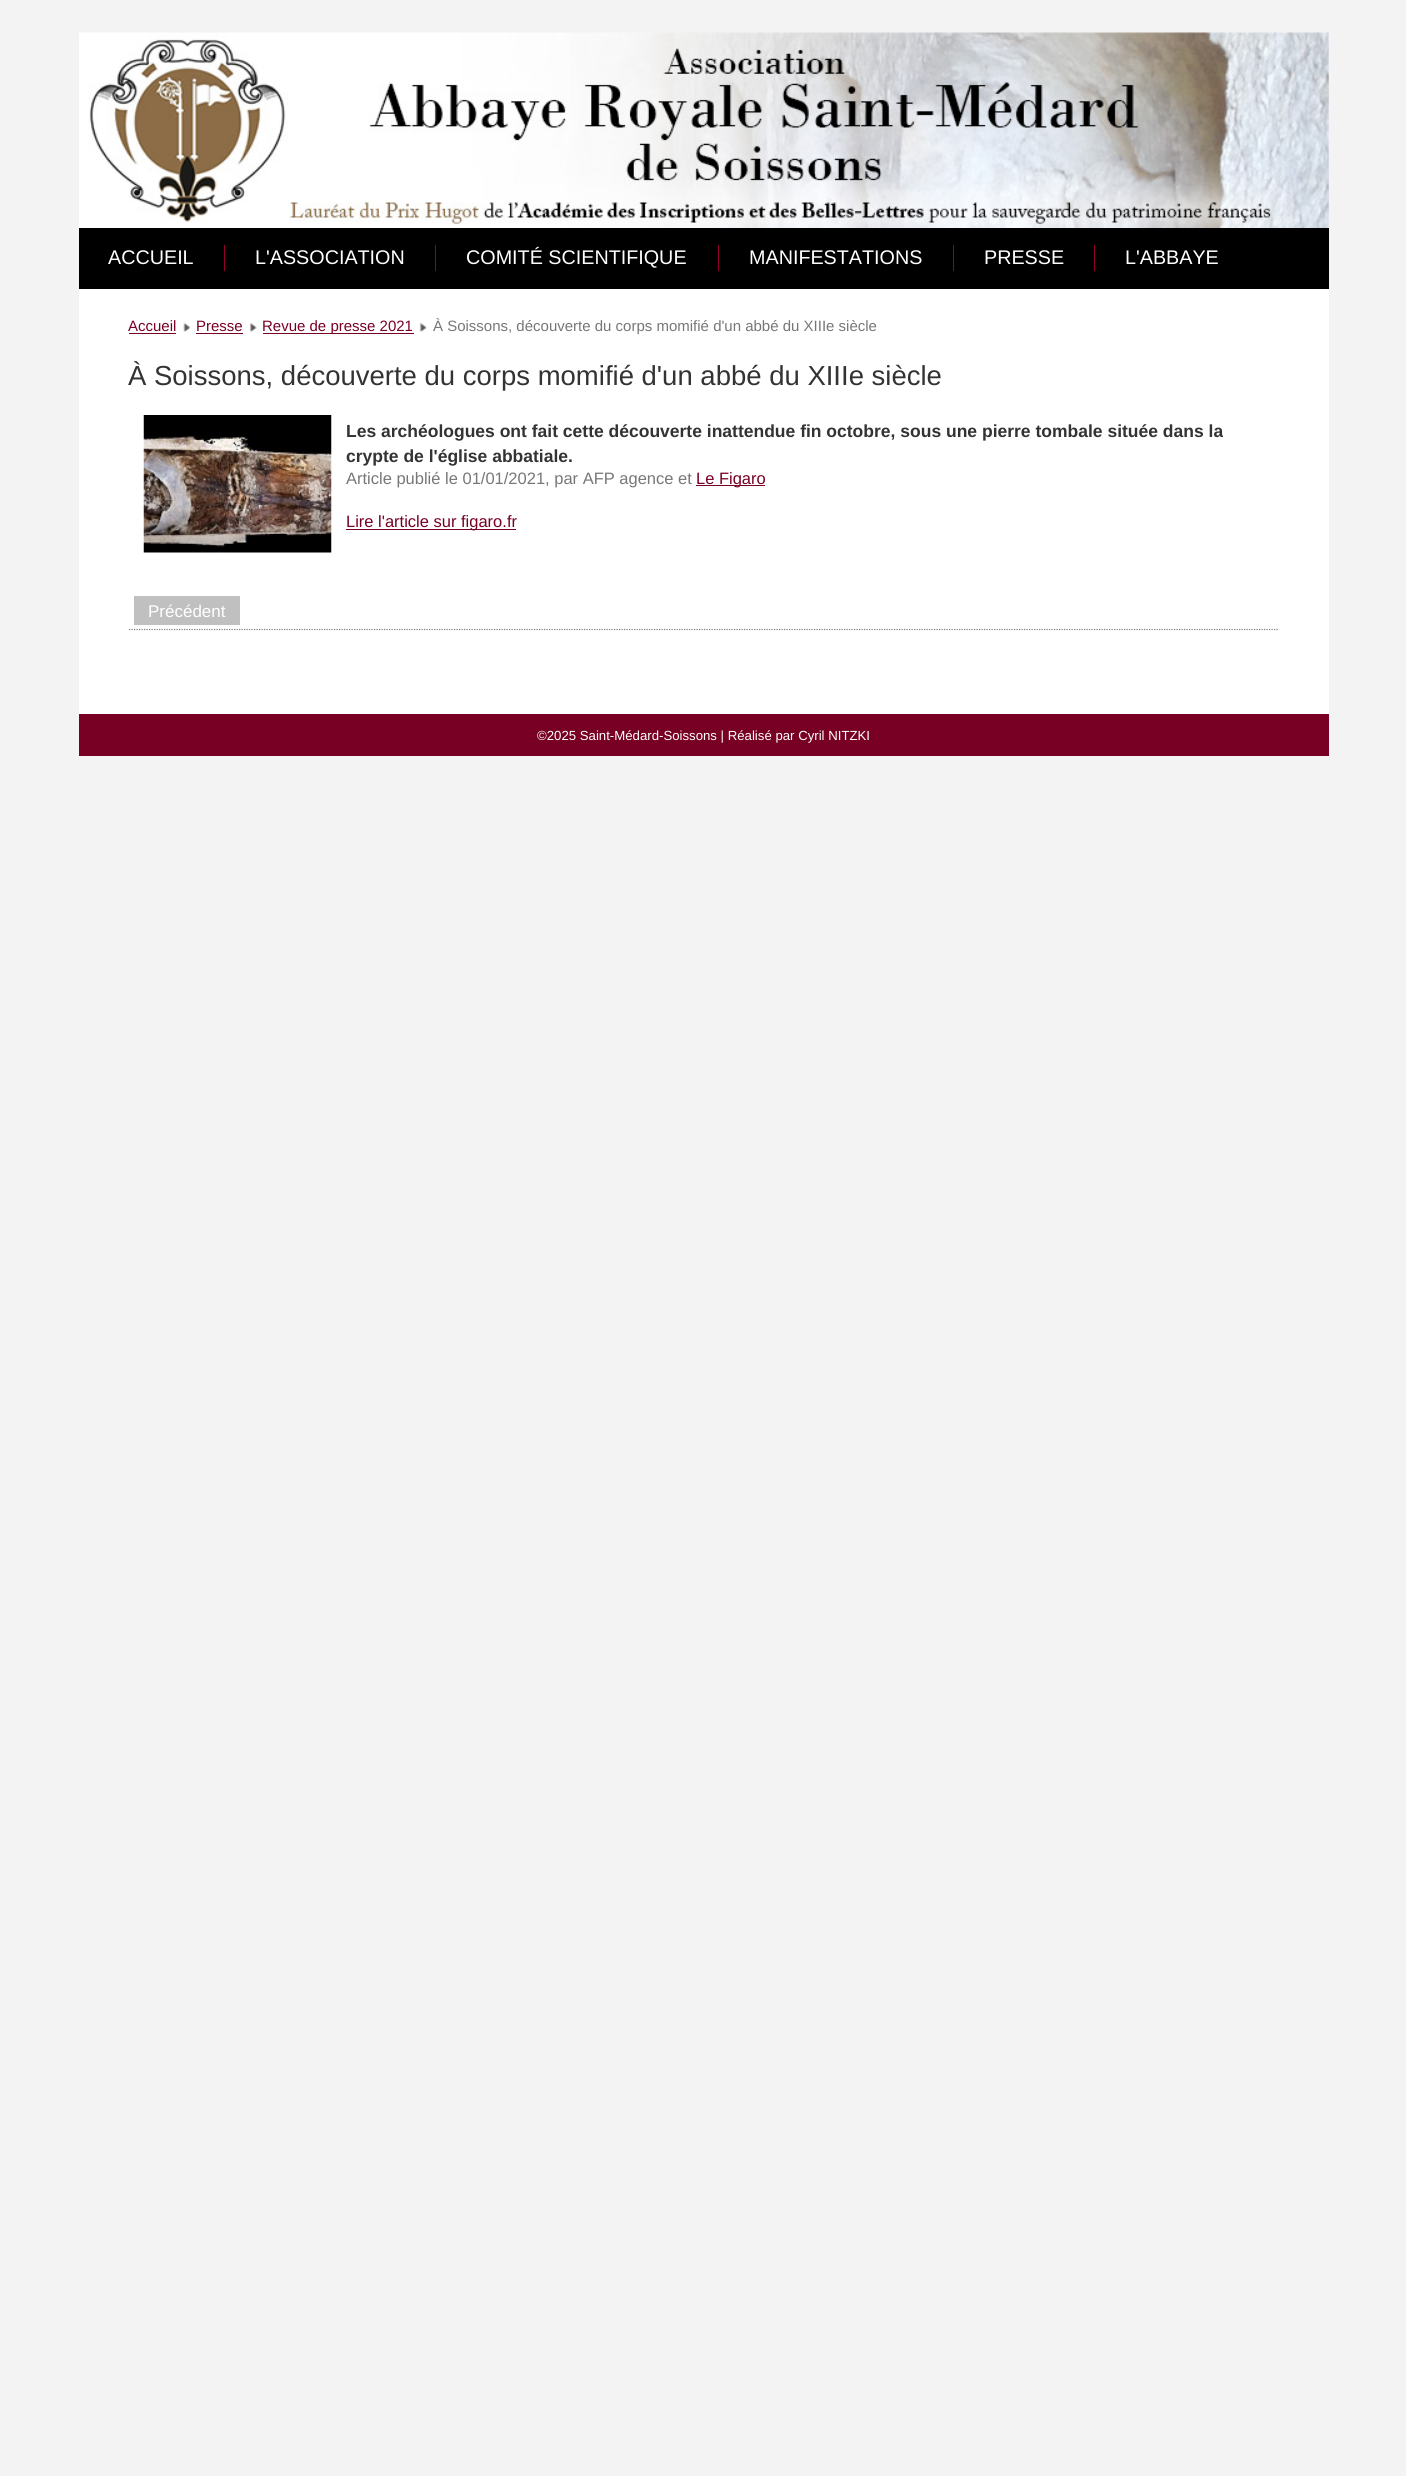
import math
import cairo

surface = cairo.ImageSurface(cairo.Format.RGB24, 1406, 2476)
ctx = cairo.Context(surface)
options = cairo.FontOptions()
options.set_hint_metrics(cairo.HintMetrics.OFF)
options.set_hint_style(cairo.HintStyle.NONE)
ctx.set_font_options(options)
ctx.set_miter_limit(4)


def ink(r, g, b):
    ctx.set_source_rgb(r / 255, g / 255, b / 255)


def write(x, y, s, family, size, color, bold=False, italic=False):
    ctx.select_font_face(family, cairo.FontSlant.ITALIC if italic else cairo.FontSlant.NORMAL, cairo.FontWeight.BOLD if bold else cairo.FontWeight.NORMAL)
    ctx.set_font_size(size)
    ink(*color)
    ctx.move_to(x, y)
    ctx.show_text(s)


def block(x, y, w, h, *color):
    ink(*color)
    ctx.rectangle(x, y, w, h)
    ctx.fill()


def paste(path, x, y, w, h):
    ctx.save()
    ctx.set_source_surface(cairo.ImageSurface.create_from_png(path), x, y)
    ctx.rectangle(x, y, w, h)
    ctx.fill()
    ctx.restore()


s1 = dict(family="Liberation Sans", size=19.75, color=(255, 255, 255))
s2 = dict(family="Liberation Sans", size=15, color=(119, 0, 36))
s3 = dict(family="Liberation Sans", size=15, color=(119, 119, 119))
s4 = dict(family="Liberation Sans", size=27.5, color=(51, 51, 51))
s5 = dict(family="Liberation Sans", size=17.5, color=(51, 51, 51), bold=True)
s6 = dict(family="Liberation Sans", size=16.5, color=(119, 119, 119))
s7 = dict(family="Liberation Sans", size=16.5, color=(119, 0, 36))
s8 = dict(family="Liberation Sans", size=17, color=(255, 255, 255))
s9 = dict(family="Liberation Sans", size=13.2, color=(255, 255, 255))

ink(243, 243, 243)
ctx.paint()
paste("pic1.png", 79, 32, 1250, 196)
block(79, 228, 1250, 61, 0, 0, 0)
write(108, 264, "ACCUEIL", **s1)
block(224, 245, 1, 26, 150, 0, 45)
write(255, 264, "L'ASSOCIATION", **s1)
block(435, 245, 1, 26, 150, 0, 45)
write(466, 264, "COMITÉ SCIENTIFIQUE", **s1)
block(718, 245, 1, 26, 150, 0, 45)
write(749, 264, "MANIFESTATIONS", **s1)
block(953, 245, 1, 26, 150, 0, 45)
write(984, 264, "PRESSE", **s1)
block(1094, 245, 1, 26, 150, 0, 45)
write(1125, 264, "L'ABBAYE", **s1)
block(79, 289, 1250, 425, 255, 255, 255)
write(128, 331, "Accueil", **s2)
block(129, 333, 47, 1, 119, 0, 36)
paste("pic2.png", 183, 322, 8, 10)
write(196, 331, "Presse", **s2)
block(196, 333, 47, 1, 119, 0, 36)
paste("pic3.png", 249, 322, 8, 10)
block(263, 333, 151, 1, 119, 0, 36)
write(262, 331, "Revue de presse 2021", **s2)
paste("pic3.png", 419, 322, 8, 10)
write(433, 331, "À Soissons, découverte du corps momifié d'un abbé du XIIIe siècle", **s3)
ctx.new_path()
ctx.move_to(129, 629.5)
ctx.line_to(1279, 629.5)
ink(128, 128, 128)
ctx.set_line_width(1.2)
ctx.set_dash([1.25, 1.25])
ctx.stroke()
write(128, 385, "À Soissons, découverte du corps momifié d'un abbé du XIIIe siècle", **s4)
paste("pic4.png", 143, 415, 189, 138)
write(346, 437, "Les archéologues ont fait cette découverte inattendue fin octobre, sous une pierre tombale située dans la", **s5)
write(346, 462, "crypte de l'église abbatiale.", **s5)
write(346, 484, "Article publié le 01/01/2021, par AFP agence et", **s6)
block(696, 485, 69, 1, 119, 0, 36)
write(696, 484, "Le Figaro", **s7)
block(346, 529, 170, 1, 119, 0, 36)
write(346, 527, "Lire l'article sur figaro.fr", **s7)
block(134, 596, 106, 29, 192, 192, 192)
write(148, 617, "Précédent", **s8)
block(79, 714, 1250, 42, 119, 0, 36)
write(537, 740, "©2025 Saint-Médard-Soissons | Réalisé par Cyril NITZKI", **s9)
surface.write_to_png("screenshot.png")
